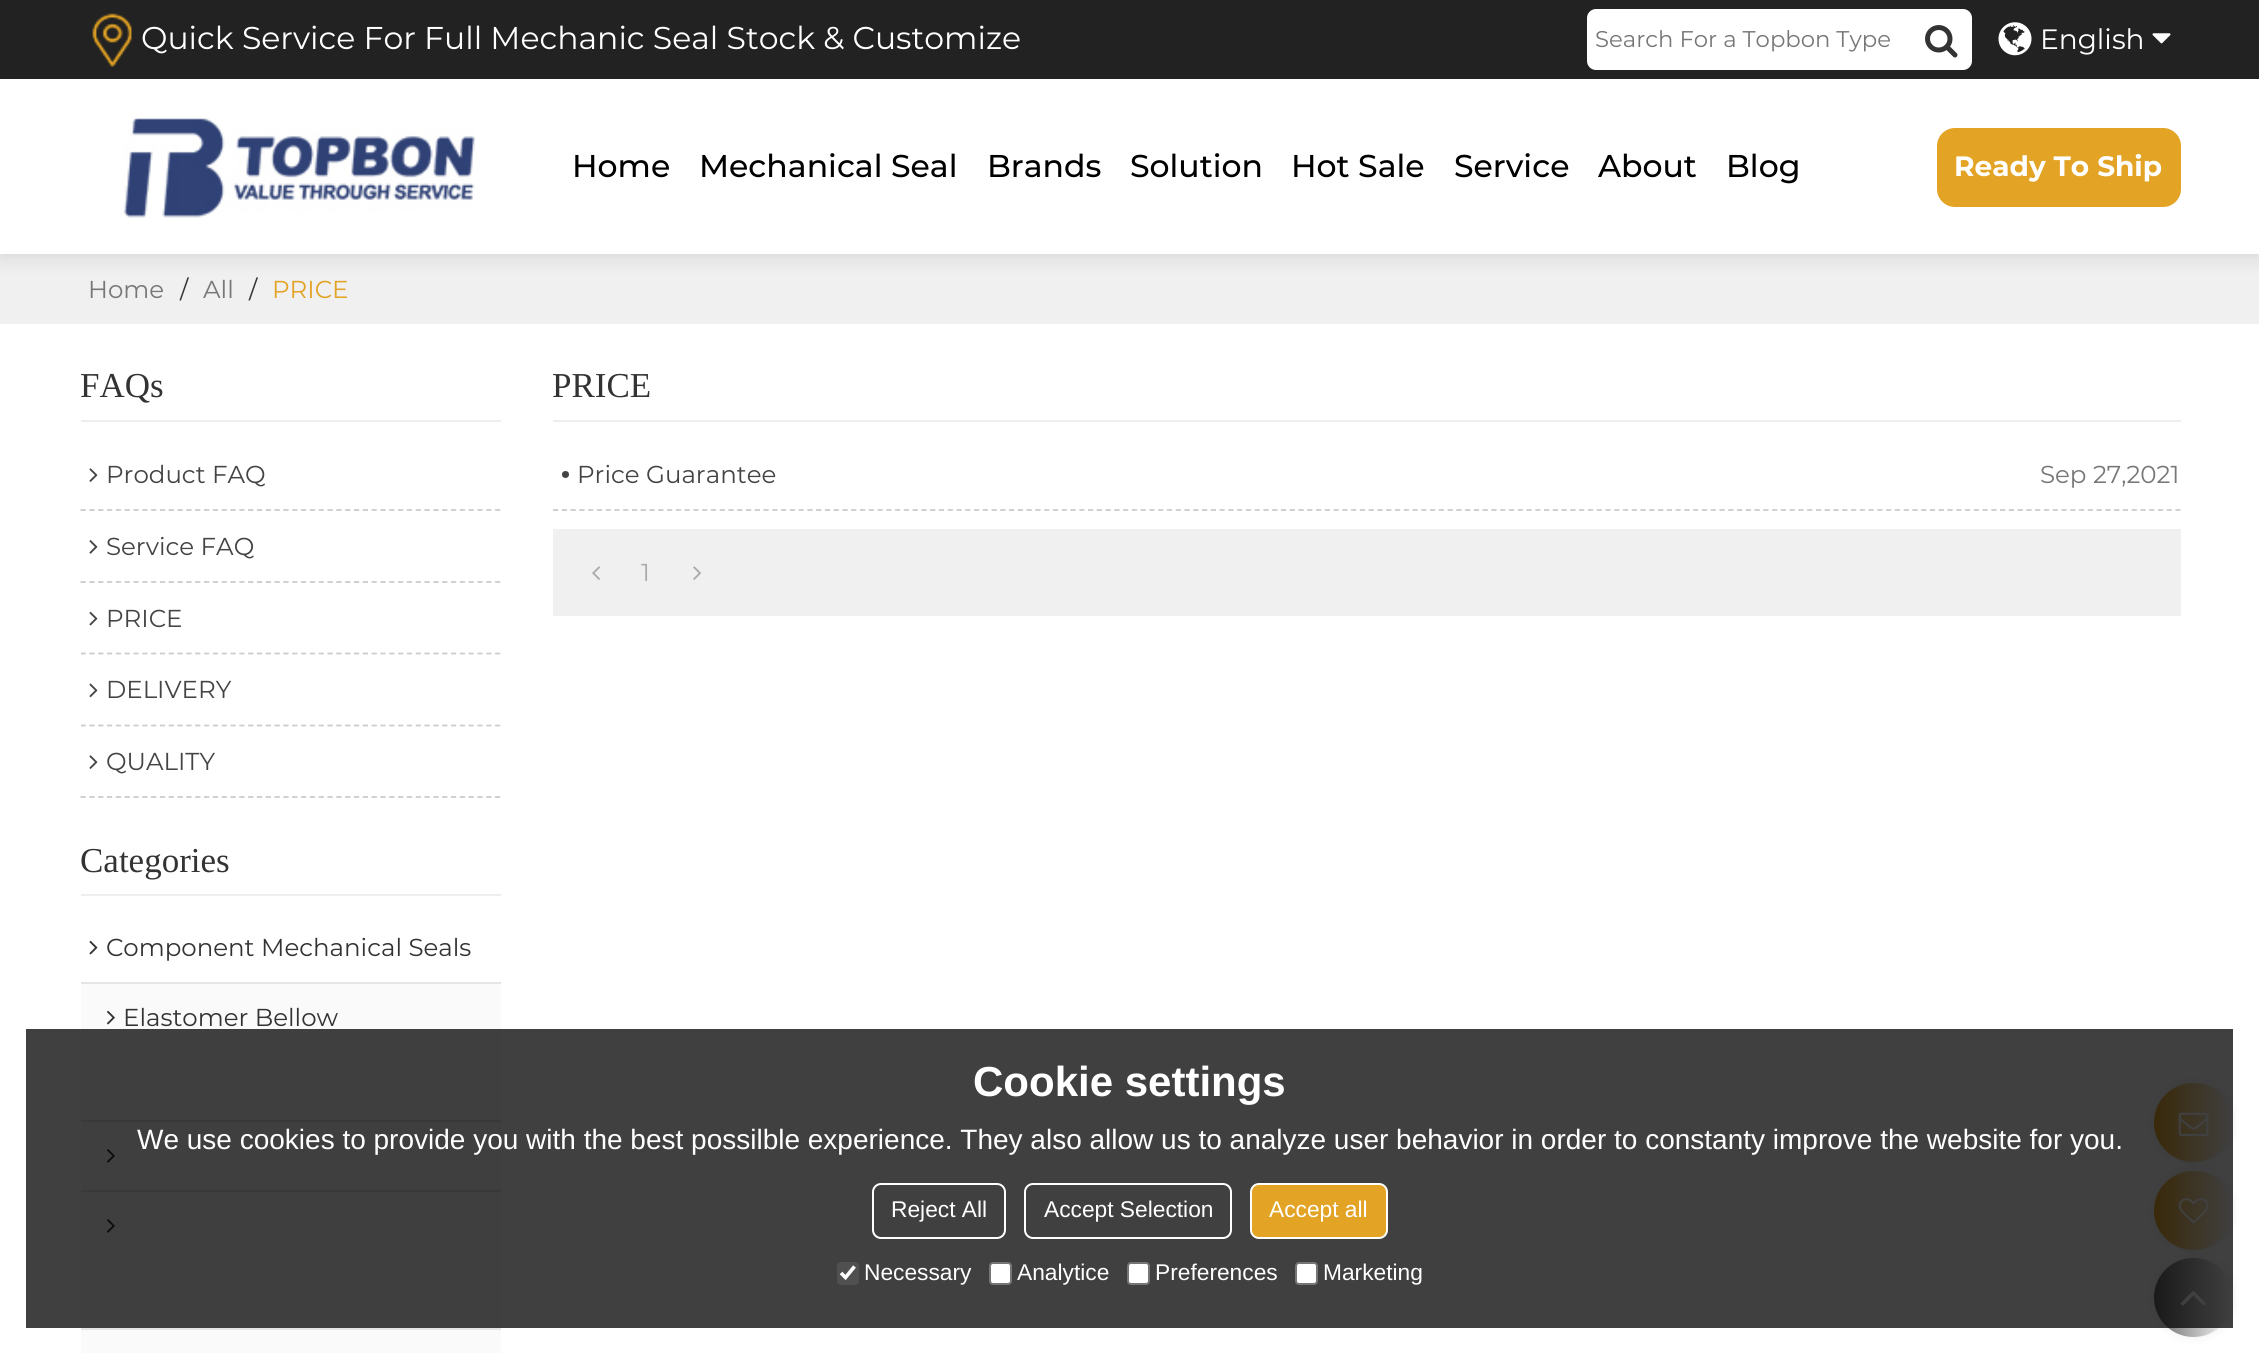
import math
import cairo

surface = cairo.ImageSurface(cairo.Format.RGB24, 2259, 1353)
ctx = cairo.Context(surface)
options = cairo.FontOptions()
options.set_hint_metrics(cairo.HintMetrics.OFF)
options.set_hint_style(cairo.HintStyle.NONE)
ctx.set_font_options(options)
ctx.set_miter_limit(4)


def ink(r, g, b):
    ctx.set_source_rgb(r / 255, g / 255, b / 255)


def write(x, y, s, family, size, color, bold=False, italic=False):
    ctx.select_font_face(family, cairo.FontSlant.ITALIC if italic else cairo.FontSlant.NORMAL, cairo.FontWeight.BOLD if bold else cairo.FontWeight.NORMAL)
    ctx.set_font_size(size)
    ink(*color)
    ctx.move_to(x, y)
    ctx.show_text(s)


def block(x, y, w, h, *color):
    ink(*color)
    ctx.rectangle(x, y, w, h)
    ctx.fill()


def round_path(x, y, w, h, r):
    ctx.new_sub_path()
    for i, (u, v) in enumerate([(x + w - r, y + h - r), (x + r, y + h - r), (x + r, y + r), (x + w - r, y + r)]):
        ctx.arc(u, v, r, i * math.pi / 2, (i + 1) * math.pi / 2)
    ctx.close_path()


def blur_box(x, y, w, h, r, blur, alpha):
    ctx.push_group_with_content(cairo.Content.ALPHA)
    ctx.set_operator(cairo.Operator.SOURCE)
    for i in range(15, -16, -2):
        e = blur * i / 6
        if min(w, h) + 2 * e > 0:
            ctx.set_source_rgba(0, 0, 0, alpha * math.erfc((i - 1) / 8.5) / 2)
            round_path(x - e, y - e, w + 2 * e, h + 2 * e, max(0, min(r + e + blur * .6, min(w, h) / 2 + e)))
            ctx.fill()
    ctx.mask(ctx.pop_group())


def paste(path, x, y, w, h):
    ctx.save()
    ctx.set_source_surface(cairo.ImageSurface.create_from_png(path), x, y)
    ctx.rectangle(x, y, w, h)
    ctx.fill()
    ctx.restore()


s1 = dict(family="Montserrat", size=31.5, color=(255, 255, 255))
s2 = dict(family="Montserrat", size=22.75, color=(119, 119, 119))
s3 = dict(family="Montserrat", size=28, color=(255, 255, 255))
s4 = dict(family="Montserrat Medium", size=31.5, color=(0, 0, 0))
s5 = dict(family="Montserrat", size=28, color=(255, 255, 255), bold=True)
s6 = dict(family="Montserrat", size=24.5, color=(119, 119, 119))
s7 = dict(family="Montserrat", size=24.5, color=(51, 51, 51))
s8 = dict(family="Montserrat", size=24.5, color=(227, 163, 36))
s9 = dict(family="Liberation Serif", size=35, color=(51, 51, 51))
s10 = dict(family="Montserrat", size=24.5, color=(68, 68, 68))
s11 = dict(family="Montserrat", size=24.5, color=(170, 170, 170))
s12 = dict(family="Liberation Sans", size=42, color=(255, 255, 255), bold=True)
s13 = dict(family="Liberation Sans", size=28, color=(255, 255, 255))
s14 = dict(family="Liberation Sans", size=22.75, color=(255, 255, 255))

ink(255, 255, 255)
ctx.paint()
block(0, 254, 2259, 70, 240, 240, 240)
ink(0, 0, 0)
blur_box(0, 84, 2259, 175, 0, 9, 0.1)
block(0, 0, 2259, 79, 34, 34, 34)
paste("pic1.png", 92, 13, 40, 54)
write(141, 49, "Quick Service For Full Mechanic Seal Stock & Customize", **s1)
round_path(1587, 9, 385, 61, 9)
ctx.fill()
write(1595, 47, "Search For a Topbon Type", **s2)
paste("pic2.png", 1925, 25, 33, 33)
paste("pic3.png", 1998, 22, 34, 34)
write(2040, 49, "English", **s3)
paste("pic4.png", 2152, 33, 19, 11)
block(0, 79, 2259, 175, 255, 255, 255)
paste("pic5.png", 123, 118, 352, 100)
write(572, 177, "Home", **s4)
write(699, 177, "Mechanical Seal", **s4)
write(987, 177, "Brands", **s4)
write(1130, 177, "Solution", **s4)
write(1291, 177, "Hot Sale", **s4)
write(1454, 177, "Service", **s4)
write(1598, 177, "About", **s4)
write(1726, 177, "Blog", **s4)
ink(227, 163, 36)
round_path(1937, 128, 244, 79, 18)
ctx.fill()
write(1954, 176, "Ready To Ship", **s5)
write(88, 298, "Home", **s6)
write(180, 298, "/", **s7)
write(203, 298, "All", **s6)
write(249, 298, "/", **s7)
write(272, 298, "PRICE", **s8)
block(81, 420, 420, 2, 238, 238, 238)
write(80, 397, "FAQs", **s9)
ctx.new_path()
ctx.move_to(80.5, 510)
ctx.line_to(500.5, 510)
ink(204, 204, 204)
ctx.set_line_width(1.8)
ctx.set_dash([5.25, 3.57])
ctx.stroke()
paste("pic6.png", 89, 468, 9, 14)
write(106, 483, "Product FAQ", **s10)
ctx.new_path()
ctx.move_to(80.5, 582)
ctx.line_to(500.5, 582)
ink(204, 204, 204)
ctx.stroke()
paste("pic7.png", 89, 540, 9, 14)
write(106, 555, "Service FAQ", **s10)
ctx.save()
ctx.rectangle(81, 439, 420, 359)
ctx.clip()
ctx.new_path()
ctx.move_to(80.5, 653.5)
ctx.line_to(500.5, 653.5)
ink(204, 204, 204)
ctx.stroke()
ctx.restore()
paste("pic8.png", 89, 611, 9, 15)
write(106, 627, "PRICE", **s10)
ctx.save()
ctx.rectangle(81, 439, 420, 359)
ctx.clip()
ctx.new_path()
ctx.move_to(80.5, 725.5)
ctx.line_to(500.5, 725.5)
ink(204, 204, 204)
ctx.stroke()
ctx.restore()
paste("pic9.png", 89, 683, 9, 15)
write(106, 698, "DELIVERY", **s10)
ctx.new_path()
ctx.move_to(80.5, 797)
ctx.line_to(500.5, 797)
ink(204, 204, 204)
ctx.stroke()
paste("pic6.png", 89, 755, 9, 14)
write(106, 770, "QUALITY", **s10)
block(81, 894, 420, 2, 238, 238, 238)
write(80, 872, "Categories", **s9)
block(81, 982, 420, 2, 229, 229, 229)
paste("pic10.png", 89, 940, 9, 15)
write(106, 956, "Component Mechanical Seals", **s7)
block(81, 984, 420, 136, 250, 250, 250)
block(81, 1120, 420, 2, 229, 229, 229)
paste("pic11.png", 107, 1010, 8, 15)
write(123, 1026, "Elastomer Bellow", **s7)
block(81, 1122, 420, 68, 250, 250, 250)
block(81, 1190, 420, 2, 229, 229, 229)
paste("pic12.png", 107, 1149, 8, 14)
block(81, 1192, 420, 136, 250, 250, 250)
block(81, 1328, 420, 2, 229, 229, 229)
paste("pic12.png", 107, 1219, 8, 14)
block(81, 1330, 420, 23, 250, 250, 250)
block(553, 420, 1628, 2, 238, 238, 238)
write(552, 397, "PRICE", **s9)
ctx.new_path()
ctx.move_to(553, 510)
ctx.line_to(2180.5, 510)
ink(204, 204, 204)
ctx.set_dash([5.25, 3.52])
ctx.stroke()
ink(68, 68, 68)
ctx.arc(565.5, 474.5, 3.5, 0, 2 * math.pi)
ctx.fill()
write(577, 483, "Price Guarantee", **s10)
write(2040, 483, "Sep 27,2021", **s6)
block(553, 529, 1628, 87, 240, 240, 240)
paste("pic13.png", 592, 566, 8, 14)
write(641, 581, "1", **s11)
paste("pic14.png", 693, 566, 8, 14)
ink(238, 238, 238)
blur_box(2154, 1083, 79, 79, 39.5, 4.5, 1)
gradient = cairo.LinearGradient(2154, 1123, 2233, 1123)
gradient.add_color_stop_rgba(0, 0.89, 0.639, 0.141, 1)
gradient.add_color_stop_rgba(1, 1, 1, 1, 1)
ctx.set_source(gradient)
ctx.arc(2193.5, 1122.5, 39.5, 0, 2 * math.pi)
ctx.fill()
paste("pic15.png", 2178, 1112, 31, 25)
ink(238, 238, 238)
blur_box(2154, 1171, 79, 79, 39.5, 4.5, 1)
gradient = cairo.LinearGradient(2154, 1210, 2233, 1210)
gradient.add_color_stop_rgba(0, 0.89, 0.639, 0.141, 1)
gradient.add_color_stop_rgba(1, 1, 1, 1, 1)
ctx.set_source(gradient)
ctx.arc(2193.5, 1210.5, 39.5, 0, 2 * math.pi)
ctx.fill()
paste("pic16.png", 2178, 1198, 31, 26)
ink(238, 238, 238)
blur_box(2154, 1258, 79, 79, 39.5, 4.5, 1)
gradient = cairo.LinearGradient(2154, 1298, 2233, 1298)
gradient.add_color_stop_rgba(0, 0.4, 0.4, 0.4, 1)
gradient.add_color_stop_rgba(1, 1, 1, 1, 1)
ctx.set_source(gradient)
ctx.arc(2193.5, 1297.5, 39.5, 0, 2 * math.pi)
ctx.fill()
paste("pic17.png", 2180, 1291, 26, 15)
ctx.set_source_rgba(0, 0, 0, 0.75)
ctx.rectangle(26, 1029, 2207, 299)
ctx.fill()
write(973, 1096, "Cookie settings", **s12)
write(137, 1149, "We use cookies to provide you with the best possilble experience. They also allow us to analyze user behavior in order to constanty improve the website for you.", **s13)
round_path(873, 1184, 132, 54, 8)
ctx.set_line_width(2)
ctx.set_dash([])
ctx.stroke()
write(891, 1217, "Reject All", **s14)
round_path(1025, 1184, 206, 54, 8)
ctx.stroke()
write(1044, 1217, "Accept Selection", **s14)
ink(227, 163, 36)
round_path(1251, 1184, 136, 54, 8)
ctx.fill_preserve()
ink(255, 255, 255)
ctx.stroke()
write(1269, 1217, "Accept all", **s14)
ink(80, 80, 80)
round_path(837, 1262, 22, 23, 4)
ctx.fill()
ctx.new_path()
ctx.move_to(841, 1273)
ctx.line_to(845.5, 1277.5)
ctx.line_to(854.5, 1266.5)
ink(255, 255, 255)
ctx.set_line_width(3.6)
ctx.stroke()
write(864, 1280, "Necessary", **s14)
round_path(990, 1263, 21, 21, 3)
ctx.fill_preserve()
ink(118, 118, 118)
ctx.set_line_width(2)
ctx.stroke()
write(1017, 1280, "Analytice", **s14)
round_path(1128, 1263, 21, 21, 3)
ctx.fill_preserve()
ink(118, 118, 118)
ctx.stroke()
write(1155, 1280, "Preferences", **s14)
round_path(1296, 1263, 21, 21, 3)
ctx.fill_preserve()
ink(118, 118, 118)
ctx.stroke()
write(1323, 1280, "Marketing", **s14)
surface.write_to_png("screenshot.png")
